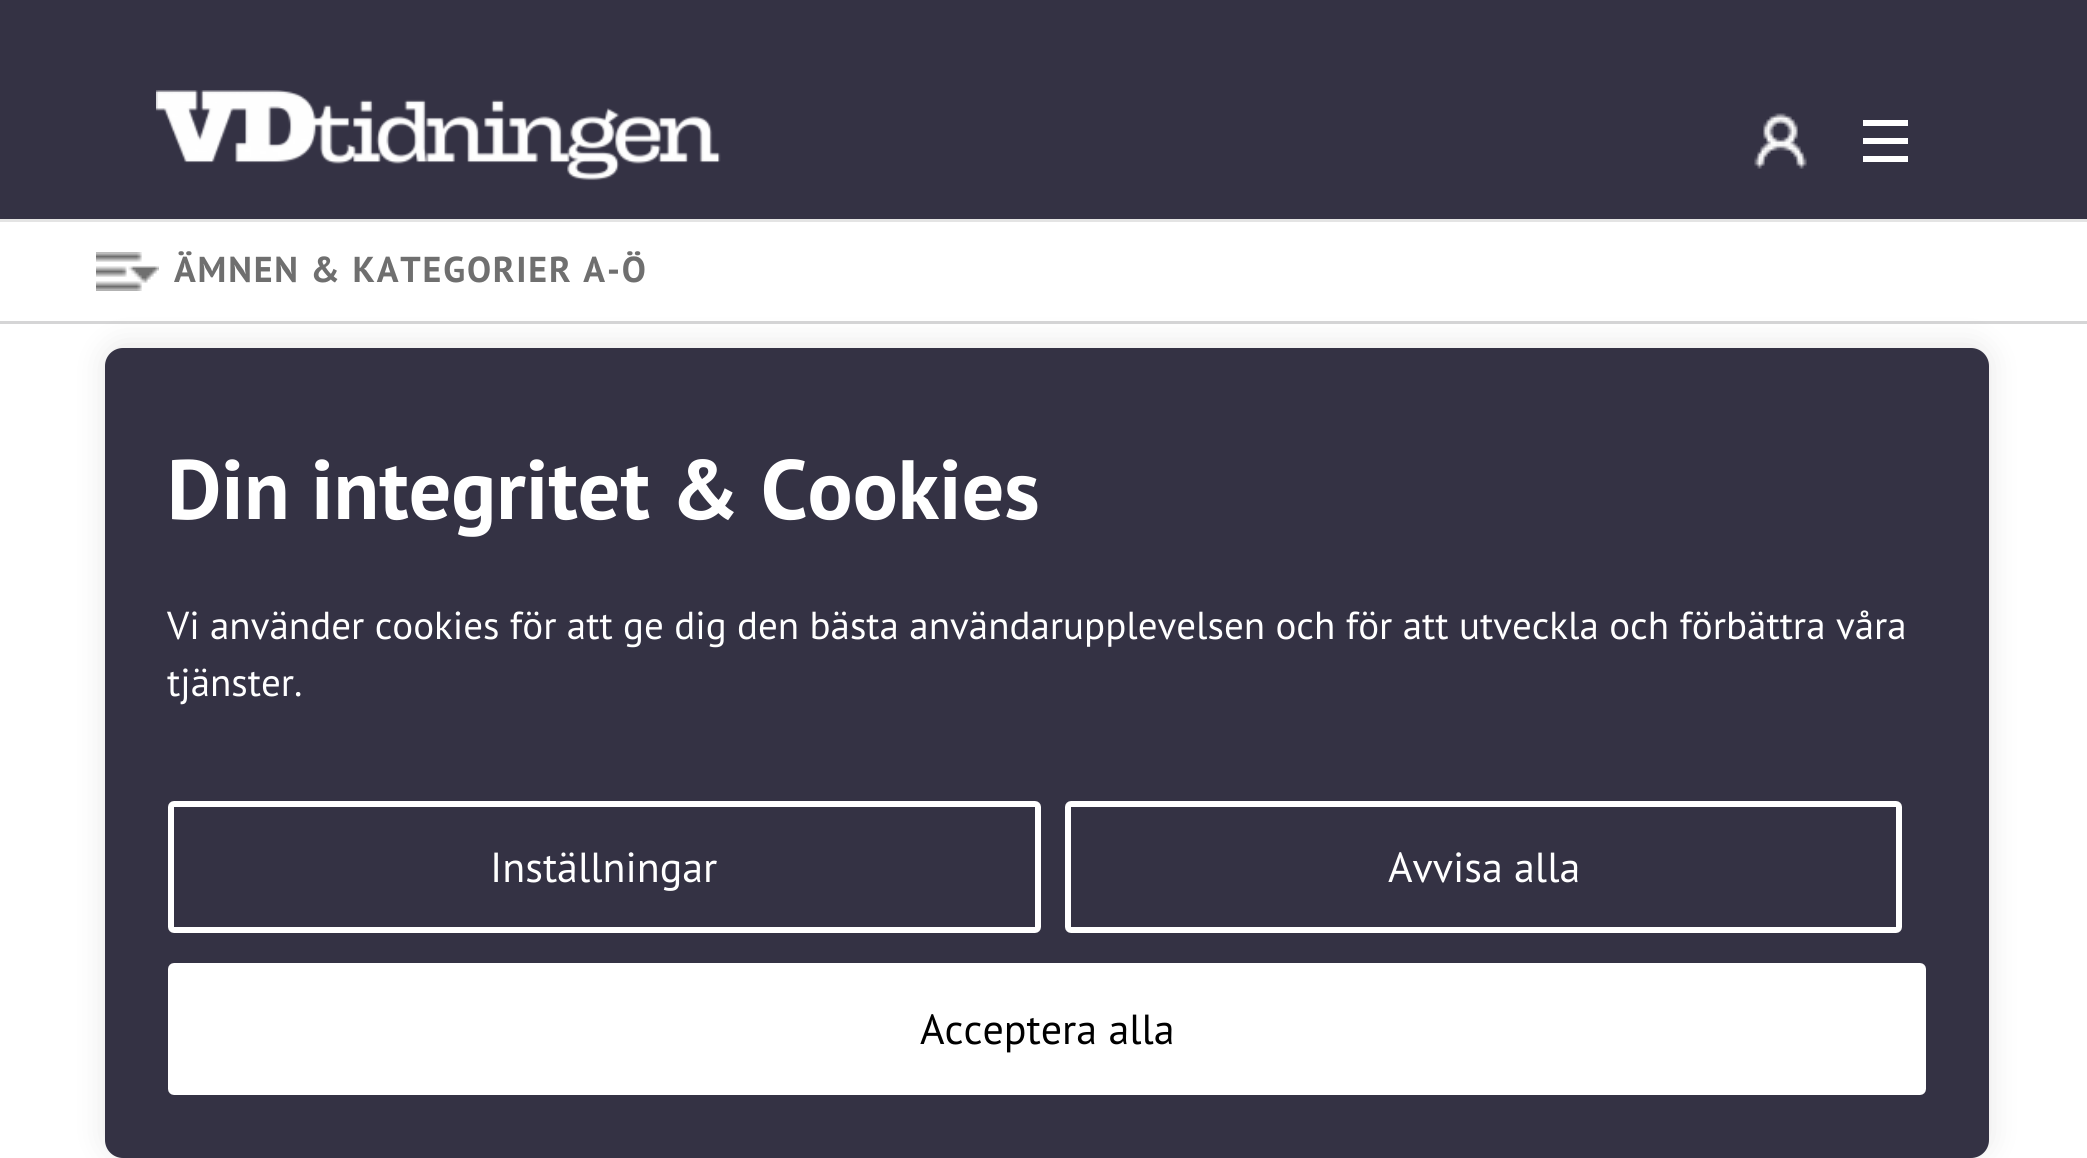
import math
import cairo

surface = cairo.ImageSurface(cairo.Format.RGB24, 2087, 1158)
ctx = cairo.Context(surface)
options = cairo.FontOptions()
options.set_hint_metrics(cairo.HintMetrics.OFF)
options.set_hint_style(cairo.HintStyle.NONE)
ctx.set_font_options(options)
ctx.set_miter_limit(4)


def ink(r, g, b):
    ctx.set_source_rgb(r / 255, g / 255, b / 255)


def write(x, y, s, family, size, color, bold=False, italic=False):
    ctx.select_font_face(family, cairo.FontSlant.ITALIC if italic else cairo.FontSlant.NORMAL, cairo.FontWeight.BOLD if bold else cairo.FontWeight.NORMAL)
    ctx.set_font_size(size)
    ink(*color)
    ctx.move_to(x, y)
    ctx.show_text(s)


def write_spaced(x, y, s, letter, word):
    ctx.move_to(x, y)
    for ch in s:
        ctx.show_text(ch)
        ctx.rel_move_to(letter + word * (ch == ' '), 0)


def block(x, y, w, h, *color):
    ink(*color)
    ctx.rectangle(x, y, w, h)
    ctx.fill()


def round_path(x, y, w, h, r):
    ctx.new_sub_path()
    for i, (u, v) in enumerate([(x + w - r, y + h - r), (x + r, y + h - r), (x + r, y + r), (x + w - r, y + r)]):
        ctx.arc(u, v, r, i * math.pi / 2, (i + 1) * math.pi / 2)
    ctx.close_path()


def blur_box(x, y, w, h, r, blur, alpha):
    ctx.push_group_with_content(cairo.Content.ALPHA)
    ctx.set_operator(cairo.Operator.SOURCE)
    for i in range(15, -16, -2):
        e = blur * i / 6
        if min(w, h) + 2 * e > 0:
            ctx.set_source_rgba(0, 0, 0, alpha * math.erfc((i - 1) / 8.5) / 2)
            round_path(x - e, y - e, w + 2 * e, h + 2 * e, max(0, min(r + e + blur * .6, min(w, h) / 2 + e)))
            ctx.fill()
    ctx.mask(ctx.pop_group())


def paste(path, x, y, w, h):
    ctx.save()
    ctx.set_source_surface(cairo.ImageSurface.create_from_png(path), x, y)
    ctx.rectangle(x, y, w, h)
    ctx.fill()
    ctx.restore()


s1 = dict(family="PT Sans", size=84, color=(255, 255, 255), bold=True)
s2 = dict(family="PT Sans", size=39, color=(255, 255, 255))
s3 = dict(family="PT Sans", size=42, color=(255, 255, 255))
s4 = dict(family="PT Sans", size=42, color=(0, 0, 0))

ink(255, 255, 255)
ctx.paint()
block(0, 0, 2087, 219, 52, 50, 68)
block(0, 219, 2087, 3, 228, 228, 228)
paste("pic1.png", 156, 90, 565, 91)
paste("pic2.png", 1754, 113, 53, 56)
block(1863, 120, 45, 6, 255, 255, 255)
block(1863, 138, 45, 6, 255, 255, 255)
block(1863, 156, 45, 6, 255, 255, 255)
block(0, 321, 2087, 3, 213, 213, 214)
paste("pic3.png", 96, 252, 63, 39)
ctx.select_font_face("PT Sans", cairo.FontSlant.NORMAL, cairo.FontWeight.BOLD)
ctx.set_font_size(36)
ink(111, 111, 111)
write_spaced(174, 282, "ÄMNEN & KATEGORIER A-Ö", 1.8, 0)
ink(172, 171, 171)
blur_box(105, 345, 1884, 810, 18, 15, 0.3)
ink(52, 50, 68)
round_path(106.5, 349.5, 1881, 807, 16.5)
ctx.fill_preserve()
ctx.set_line_width(3)
ctx.stroke()
write(167, 519, "Din integritet & Cookies", **s1)
write(167, 639, "Vi använder cookies för att ge dig den bästa användarupplevelsen och för att utveckla och förbättra våra", **s2)
write(167, 696, "tjänster.", **s2)
round_path(171, 804, 867, 126, 3)
ctx.set_line_width(6)
ctx.stroke()
write(490, 882, "Inställningar", **s3)
round_path(1068, 804, 831, 126, 3)
ctx.stroke()
write(1388, 882, "Avvisa alla", **s3)
round_path(171, 966, 1752, 126, 3)
ctx.fill_preserve()
ctx.stroke()
write(920, 1044, "Acceptera alla", **s4)
surface.write_to_png("screenshot.png")
